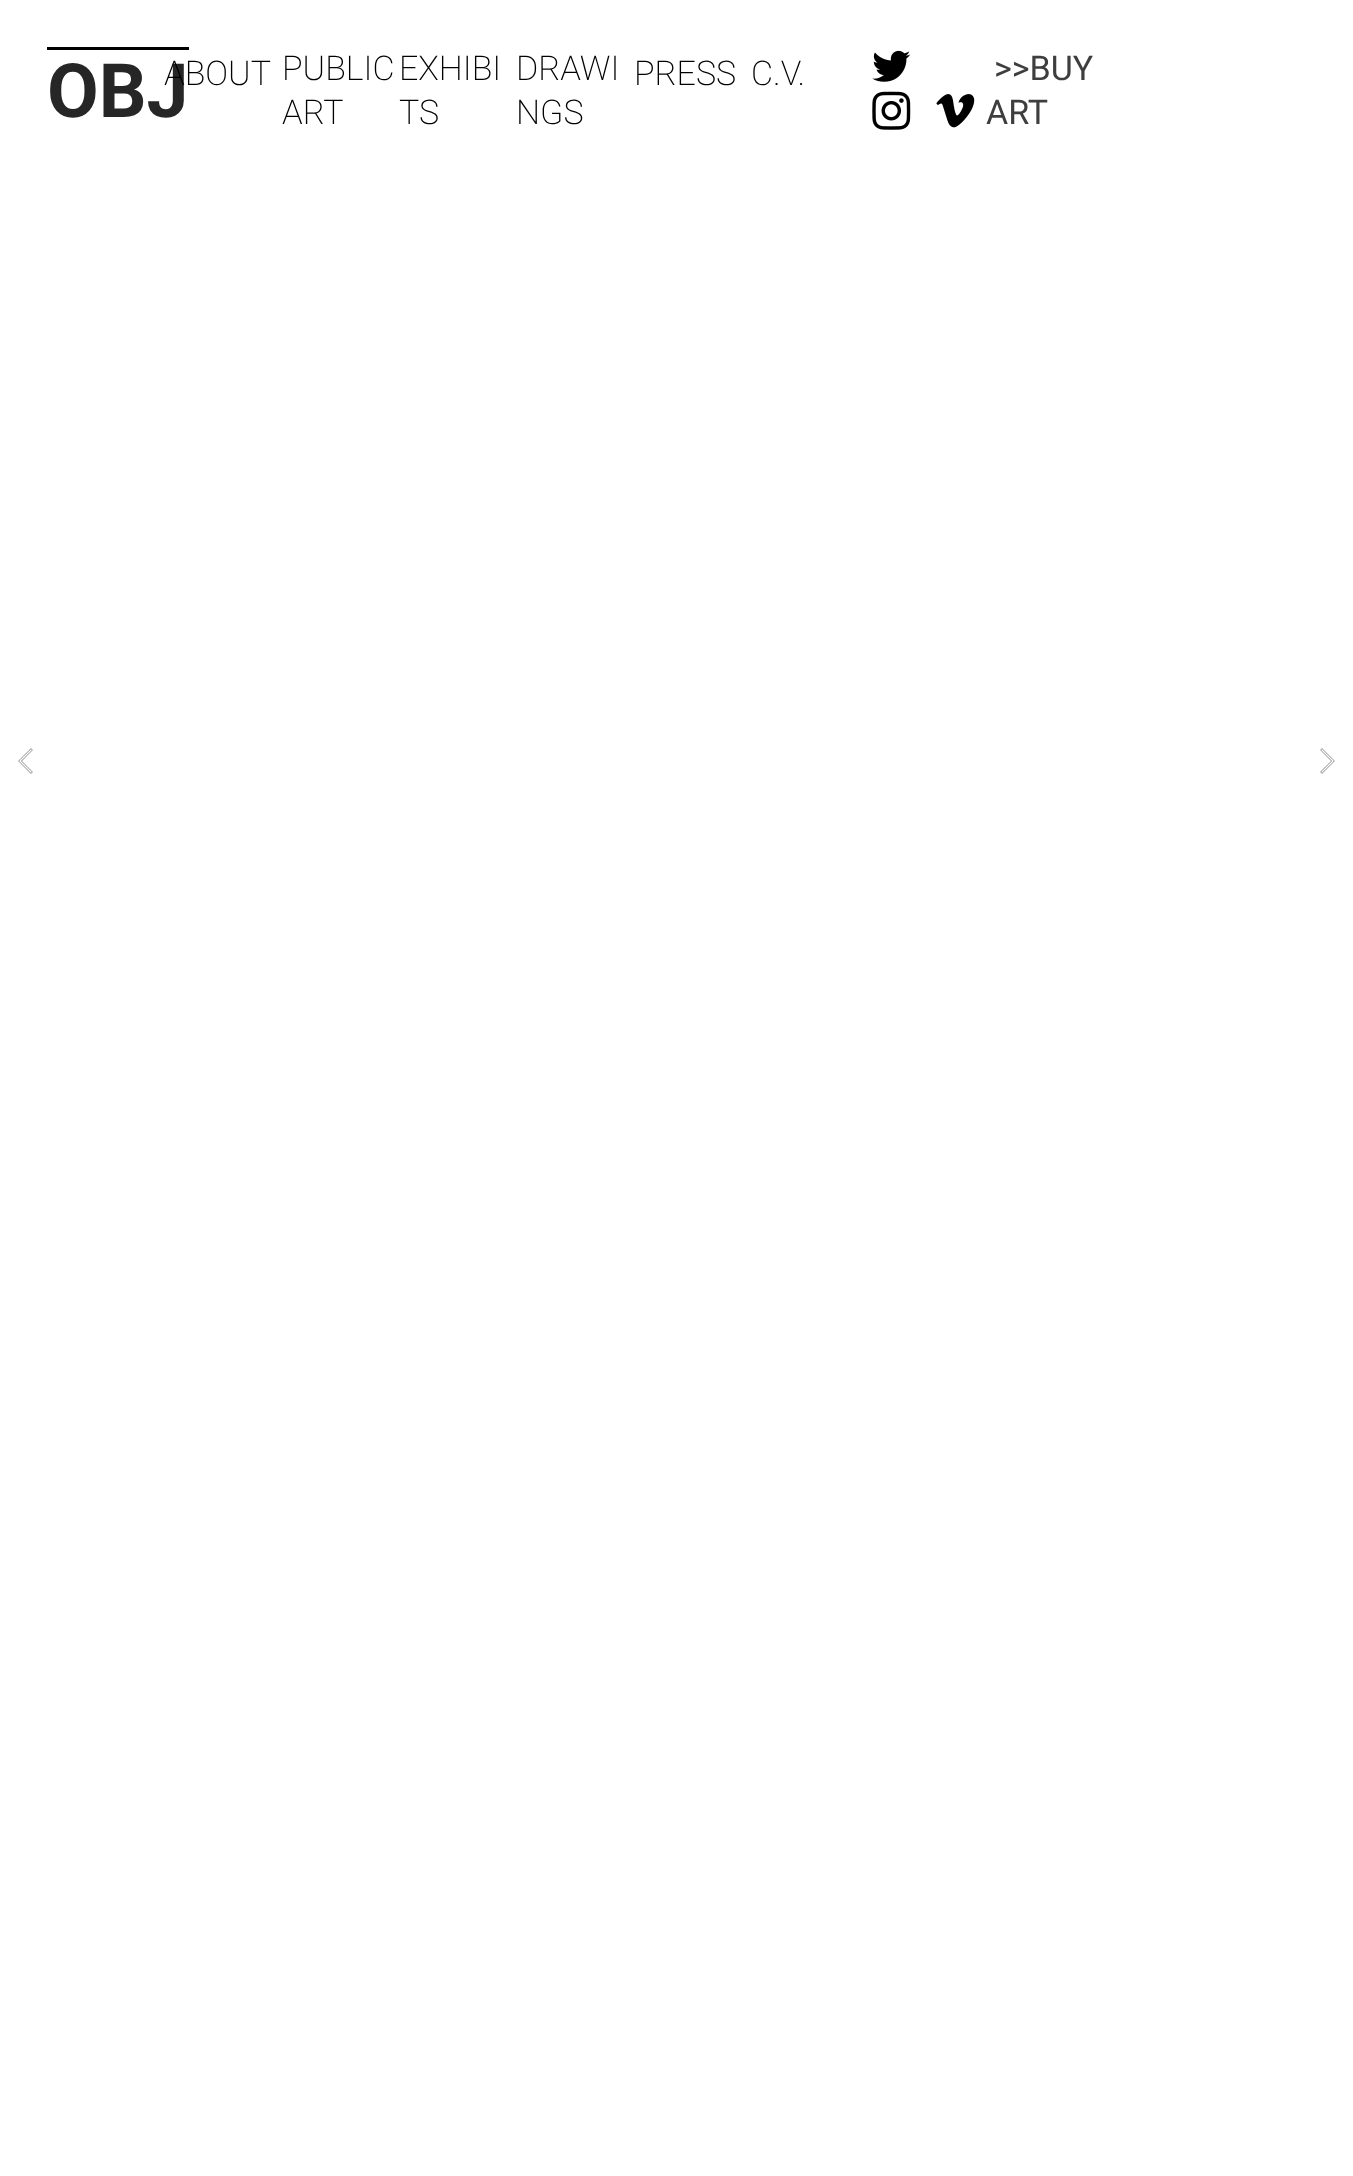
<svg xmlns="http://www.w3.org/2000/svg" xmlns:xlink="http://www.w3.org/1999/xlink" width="1353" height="2176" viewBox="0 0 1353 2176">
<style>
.cls-1{font:bold 75px Roboto;fill:#262626}
.cls-2{font:200 34px Roboto;fill:#000000}
.cls-3{font:34px Roboto;fill:#3e3e3e}
</style>
<rect width="100%" height="100%" fill="#ffffff"/>
<rect fill="#000000" x="47" y="47" width="142" height="3"/>
<image xlink:href="image0.png" x="872" y="50" width="39" height="32"/>
<image xlink:href="image1.png" x="872" y="91" width="39" height="39"/>
<image xlink:href="image2.png" x="936" y="94" width="39" height="34"/>
<path fill="none" stroke="#666666" stroke-width="2.5" stroke-linecap="square" d="M31 772L20 761L31 750"/>
<path fill="none" stroke="#ffffff" stroke-width="1.5" stroke-linecap="square" d="M31 772L20 761L31 750"/>
<path fill="none" stroke="#666666" stroke-width="2.5" stroke-linecap="square" d="M1322 772L1333 761L1322 750"/>
<path fill="none" stroke="#ffffff" stroke-width="1.5" stroke-linecap="square" d="M1322 772L1333 761L1322 750"/>
<text class="cls-1" x="47" y="117">OBJ</text>
<text class="cls-2" x="164" y="85">ABOUT</text>
<text class="cls-2"><tspan x="282" y="80">PUBLIC</tspan><tspan x="282" y="124">ART</tspan></text>
<text class="cls-2"><tspan x="399" y="80">EXHIBI</tspan><tspan x="399" y="124">TS</tspan></text>
<text class="cls-2"><tspan x="516" y="80">DRAWI</tspan><tspan x="516" y="124">NGS</tspan></text>
<text class="cls-2" x="634" y="85">PRESS</text>
<text class="cls-2" x="751" y="85">C.V.</text>
<text class="cls-3" x="994" y="80">&gt;&gt;BUY</text>
<text class="cls-3" x="986" y="124">ART</text>
</svg>
